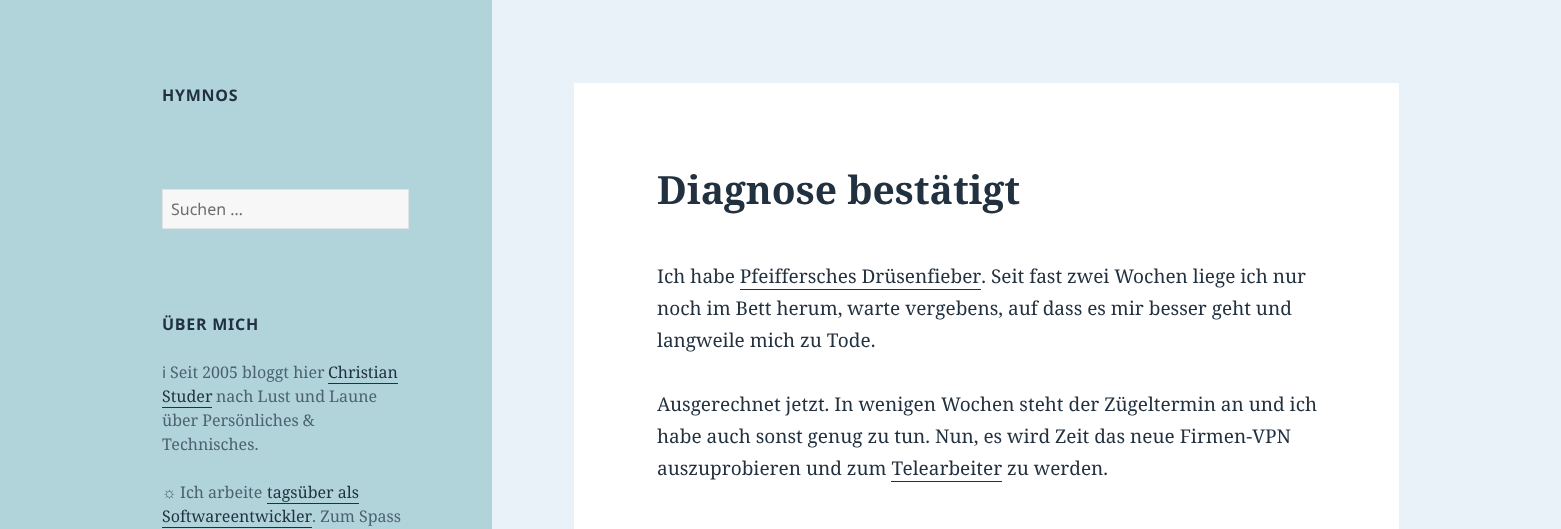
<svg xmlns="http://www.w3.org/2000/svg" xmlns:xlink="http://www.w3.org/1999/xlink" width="1561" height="529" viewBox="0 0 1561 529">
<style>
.cls-1{font:bold 16px Noto Sans;letter-spacing:0.75px;fill:#22313f}
.cls-2{font:16px Noto Sans;fill:#6e6e6e}
.cls-3{font:16px 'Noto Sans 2';fill:#4d626e}
.cls-4{font:16px Noto Serif;fill:#4d626e}
.cls-5{font:16px Noto Serif;fill:#22313f}
.cls-6{font:16px Liberation Serif;fill:#4d626e}
.cls-7{font:bold 39px Noto Serif;fill:#22313f}
.cls-8{font:19px Noto Serif;fill:#22313f}
</style>
<rect width="100%" height="100%" fill="#e9f2f9"/>
<rect fill="#b1d4db" x="0" y="0" width="492" height="529"/>
<rect fill="#f7f7f7" stroke="#e2e3e5" x="162.5" y="189.5" width="246" height="39"/>
<rect fill="#22313f" x="328" y="383" width="70" height="1"/>
<rect fill="#22313f" x="162" y="407" width="50" height="1"/>
<rect fill="#22313f" x="267" y="503" width="92" height="1"/>
<rect fill="#22313f" x="162" y="527" width="150" height="1"/>
<rect fill="#ffffff" x="574" y="83" width="825" height="446"/>
<rect fill="#22313f" x="740" y="289" width="241" height="1"/>
<rect fill="#22313f" x="891" y="481" width="111" height="1"/>
<text class="cls-1" x="162" y="101">HYMNOS</text>
<text class="cls-2" x="171" y="215">Suchen …</text>
<text class="cls-1" x="162" y="330">ÜBER MICH</text>
<text class="cls-3" x="162" y="378">ℹ︎</text>
<text class="cls-4" x="170" y="378">Seit 2005 bloggt hier</text>
<text class="cls-5" x="328" y="378">Christian</text>
<text class="cls-5" x="162" y="402">Studer</text>
<text class="cls-4" x="216" y="402">nach Lust und Laune</text>
<text class="cls-4"><tspan x="162" y="426">über Persönliches &amp;</tspan><tspan x="162" y="450">Technisches.</tspan></text>
<text class="cls-6" x="162" y="498">☼</text>
<text class="cls-4" x="180" y="498">Ich arbeite</text>
<text class="cls-5" x="267" y="498">tagsüber als</text>
<text class="cls-5" x="162" y="522">Softwareentwickler</text>
<text class="cls-4" x="312" y="522">. Zum Spass</text>
<text class="cls-7" x="657" y="204">Diagnose bestätigt</text>
<text class="cls-8"><tspan x="657" y="283">Ich habe Pfeiffersches Drüsenfieber. Seit fast zwei Wochen liege ich nur</tspan><tspan x="657" y="315">noch im Bett herum, warte vergebens, auf dass es mir besser geht und</tspan><tspan x="657" y="347">langweile mich zu Tode.</tspan></text>
<text class="cls-8"><tspan x="657" y="411">Ausgerechnet jetzt. In wenigen Wochen steht der Zügeltermin an und ich</tspan><tspan x="657" y="443">habe auch sonst genug zu tun. Nun, es wird Zeit das neue Firmen-VPN</tspan><tspan x="657" y="475">auszuprobieren und zum Telearbeiter zu werden.</tspan></text>
</svg>
